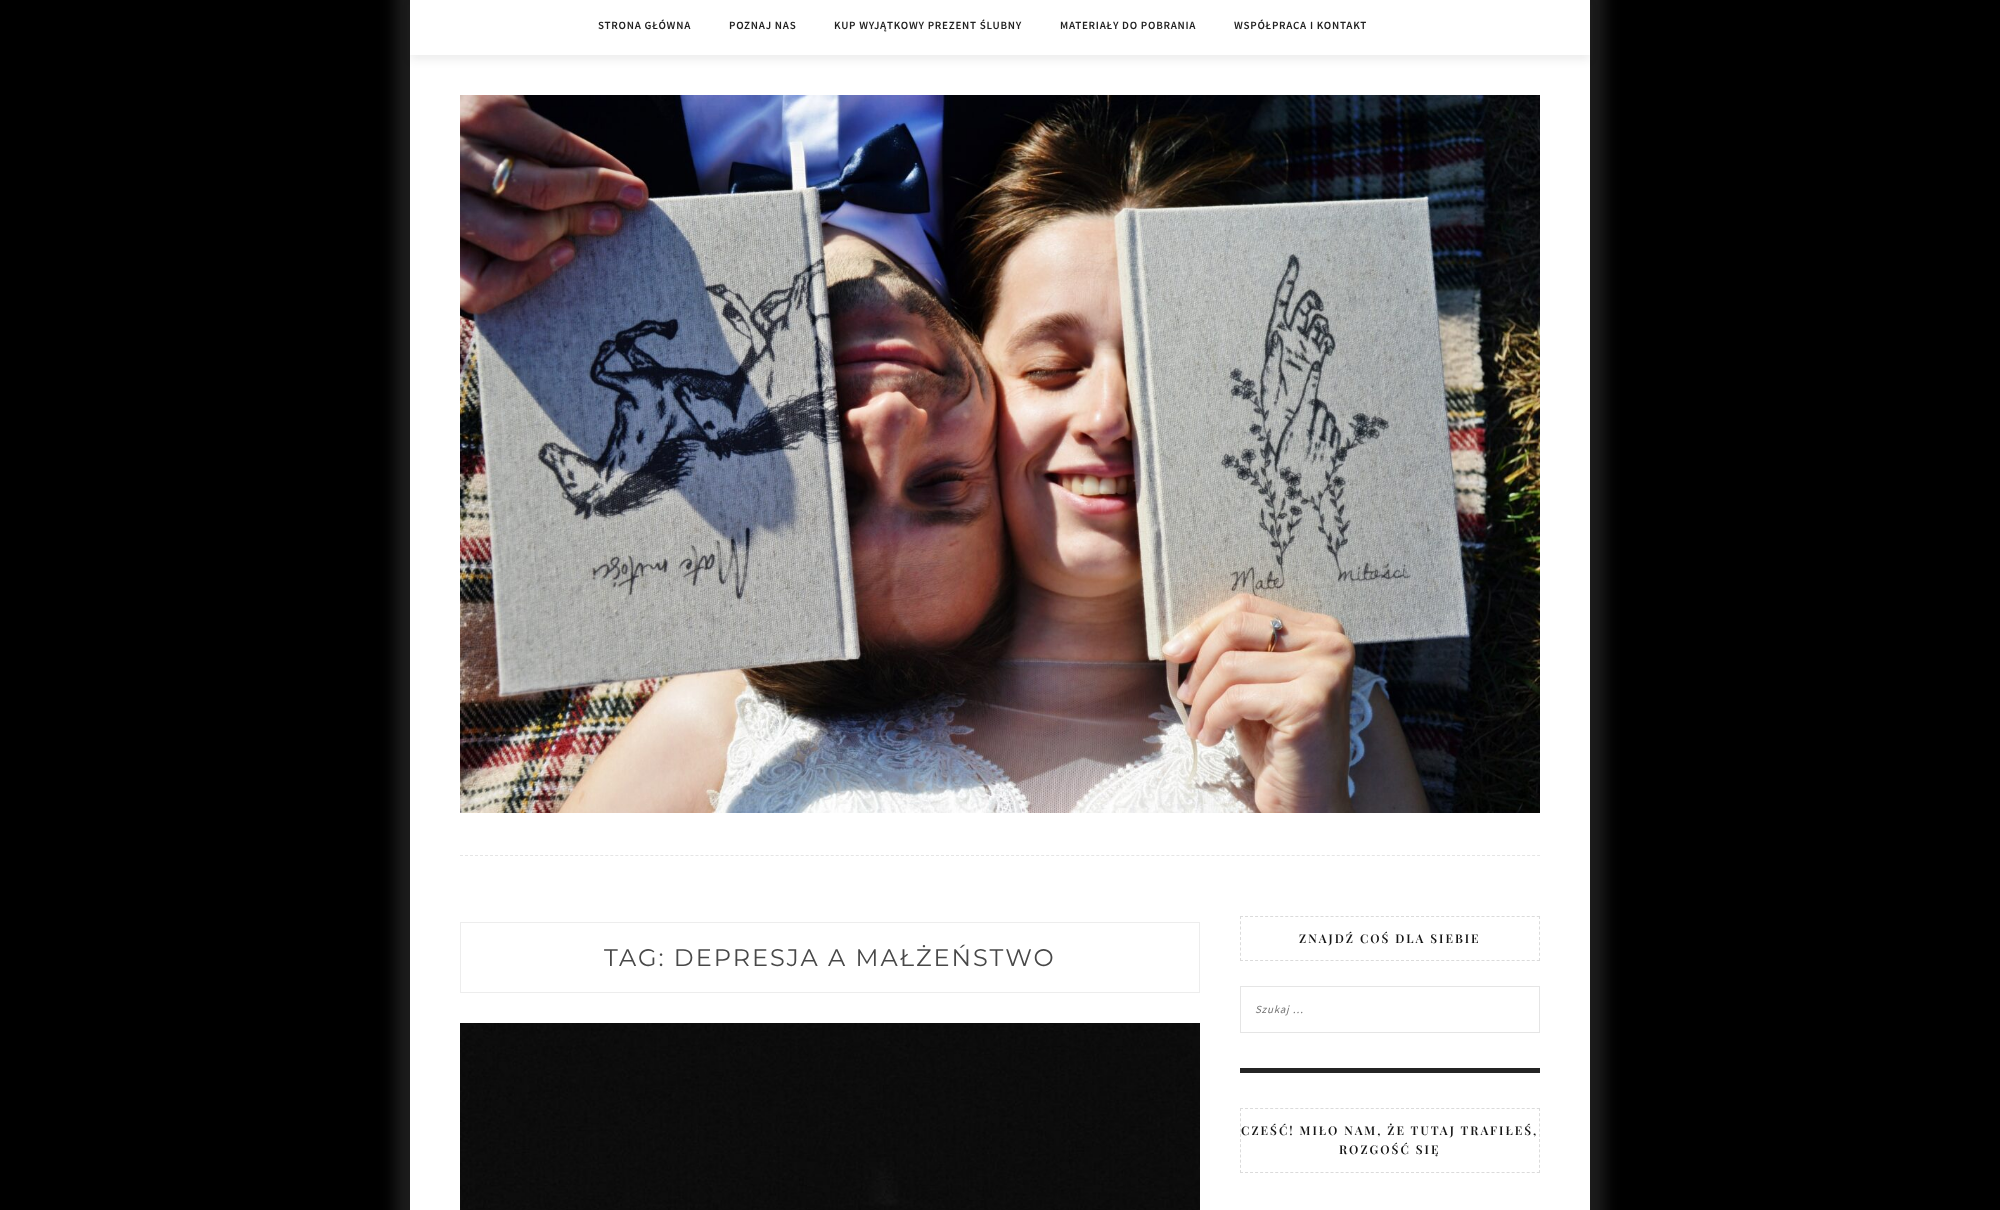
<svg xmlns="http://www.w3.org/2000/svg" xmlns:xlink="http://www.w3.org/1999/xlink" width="2000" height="1210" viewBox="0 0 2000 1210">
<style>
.cls-1{font:600 11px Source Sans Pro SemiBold;letter-spacing:0.75px;fill:#212121}
.cls-2{font:24px Montserrat;letter-spacing:2px;fill:#484848}
.cls-3{font:600 12px Playfair Display;letter-spacing:2px;fill:#161616}
.cls-4{font:italic 11px Source Sans Pro;letter-spacing:0.75px;fill:#757575}
</style>
<defs>
<clipPath id="clip1"><path d="M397 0H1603V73H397ZM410 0H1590V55H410Z" clip-rule="evenodd"/></clipPath>
</defs>
<rect width="100%" height="100%" fill="#000000"/>
<rect fill="#c8c8c8" fill-opacity="0.14" filter="blur(7.5px)" x="395" y="-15" width="1210" height="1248"/>
<rect fill="#ffffff" x="410" y="0" width="1180" height="1210"/>
<g clip-path="url(#clip1)">
<rect fill="#161616" fill-opacity="0.08" filter="blur(4px)" x="410" y="5" width="1180" height="55"/>
</g>
<path fill="none" stroke="#e5e5e5" stroke-dasharray="3 2.01" d="M460 855.5H1540"/>
<image xlink:href="image0.png" x="460" y="95" width="1080" height="718"/>
<rect fill="none" stroke="#ededed" x="460.5" y="922.5" width="739" height="70"/>
<image xlink:href="image1.png" x="460" y="1023" width="740" height="187"/>
<rect fill="#242424" x="1240" y="1068" width="300" height="5"/>
<path fill="none" stroke="#dbdbdb" stroke-dasharray="3 2.03" d="M1240 916.5H1540"/>
<path fill="none" stroke="#dbdbdb" stroke-dasharray="3 2.25" d="M1539.5 916V961"/>
<path fill="none" stroke="#dbdbdb" stroke-dasharray="3 2.03" d="M1240 960.5H1540"/>
<path fill="none" stroke="#dbdbdb" stroke-dasharray="3 2.25" d="M1240.5 916V961"/>
<rect fill="none" stroke="#e5e5e5" x="1240.5" y="986.5" width="299" height="46"/>
<path fill="none" stroke="#dbdbdb" stroke-dasharray="3 2.03" d="M1240 1108.5H1540"/>
<path fill="none" stroke="#dbdbdb" stroke-dasharray="3 2.17" d="M1539.5 1108V1173"/>
<path fill="none" stroke="#dbdbdb" stroke-dasharray="3 2.03" d="M1240 1172.5H1540"/>
<path fill="none" stroke="#dbdbdb" stroke-dasharray="3 2.17" d="M1240.5 1108V1173"/>
<text class="cls-1" x="598" y="29">STRONA GŁÓWNA</text>
<text class="cls-1" x="729" y="29">POZNAJ NAS</text>
<text class="cls-1" x="834" y="29">KUP WYJĄTKOWY PREZENT ŚLUBNY</text>
<text class="cls-1" x="1060" y="29">MATERIAŁY DO POBRANIA</text>
<text class="cls-1" x="1234" y="29">WSPÓŁPRACA I KONTAKT</text>
<text class="cls-2" x="604" y="966">TAG: DEPRESJA A MAŁŻEŃSTWO</text>
<text class="cls-3" x="1299" y="943">ZNAJDŹ COŚ DLA SIEBIE</text>
<text class="cls-4" x="1255" y="1013">Szukaj …</text>
<text class="cls-3" x="1241" y="1135">CZEŚĆ! MIŁO NAM, ŻE TUTAJ TRAFIŁEŚ,</text>
<text class="cls-3" x="1339" y="1154">ROZGOŚĆ SIĘ</text>
</svg>
